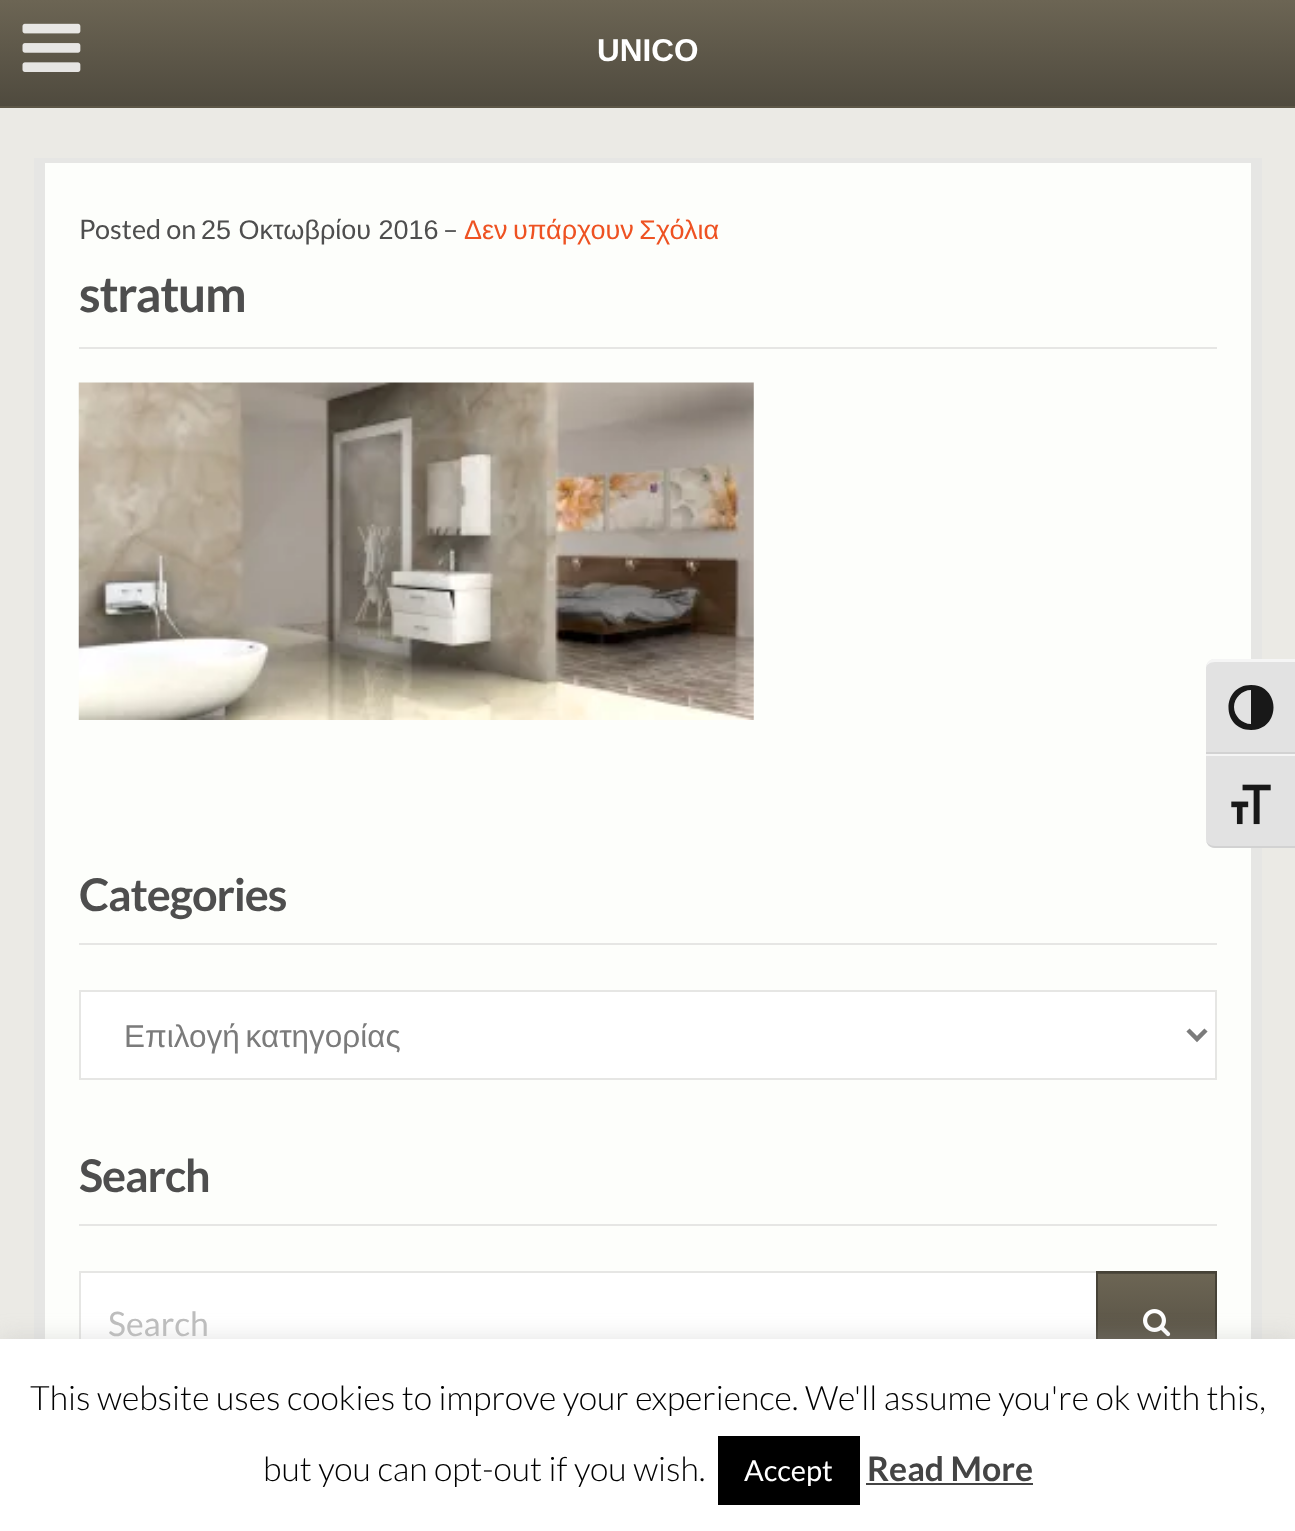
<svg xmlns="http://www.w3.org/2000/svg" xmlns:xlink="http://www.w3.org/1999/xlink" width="1295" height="1531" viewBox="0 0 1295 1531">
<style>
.cls-1{font:bold 31.5px Liberation Sans;fill:#ffffff}
.cls-2{font:27px Lato;fill:#4e4e4e}
.cls-3{font:27px Liberation Sans;fill:#4e4e4e}
.cls-4{font:27px Liberation Sans;fill:#ee5222}
.cls-5{font:bold 49.5px Lato;letter-spacing:-1.25px;fill:#4e4e4e}
.cls-6{font:bold 45px Lato;letter-spacing:-1.1px;fill:#4e4e4e}
.cls-7{font:31.5px Liberation Sans;fill:#7b7b7b}
.cls-8{font:33.75px Lato;fill:#bdbdbd}
.cls-9{font:300 33.75px Lato;fill:#000000}
.cls-10{font:29px Lato;fill:#ffffff}
.cls-11{font:bold 33.75px Lato;fill:#444444}
</style>
<defs>
<linearGradient id="g1" gradientUnits="userSpaceOnUse" x1="648" y1="0" x2="648" y2="106"><stop offset="0" stop-color="#6c6554"/><stop offset="1" stop-color="#4f4a3e"/></linearGradient>
<linearGradient id="g2" gradientUnits="userSpaceOnUse" x1="1157" y1="1274" x2="1157" y2="1373"><stop offset="0" stop-color="#6c6554"/><stop offset="1" stop-color="#4f4a3e"/></linearGradient>
</defs>
<rect width="100%" height="100%" fill="#ebeae5"/>
<rect fill="url(#g1)" x="0" y="0" width="1295" height="106"/>
<rect fill="#5c5647" x="0" y="106" width="1295" height="2"/>
<image xlink:href="image0.png" x="22" y="23" width="59" height="49"/>
<rect fill="#fdfefb" x="45" y="163" width="1206" height="1176"/>
<rect fill="#e6e6e4" x="45" y="158" width="1206" height="5"/>
<rect fill="#e6e6e4" x="1251" y="158" width="11" height="1181"/>
<rect fill="#e6e6e4" x="34" y="158" width="11" height="1181"/>
<rect fill="#e6e6e4" x="79" y="347" width="1138" height="2"/>
<image xlink:href="image1.png" x="78" y="382" width="676" height="338"/>
<rect fill="#e6e6e4" x="79" y="943" width="1138" height="2"/>
<rect fill="#ffffff" stroke="#e6e6e4" stroke-width="2" x="80" y="991" width="1136" height="88"/>
<path fill="none" stroke="#7b7b7b" stroke-width="4.5" d="M1188 1030L1197 1039L1206 1030"/>
<rect fill="#e6e6e4" x="79" y="1224" width="1138" height="2"/>
<rect fill="#ffffff" x="81" y="1273" width="1015" height="66"/>
<rect fill="none" stroke="#e6e6e4" stroke-width="2" x="80" y="1272" width="1136" height="102"/>
<rect fill="#4f4a3e" x="1098" y="1273" width="117" height="1"/>
<rect fill="url(#g2)" x="1098" y="1274" width="117" height="65"/>
<rect fill="none" stroke="#464237" stroke-width="2" x="1097" y="1272" width="119" height="102"/>
<image xlink:href="image2.png" x="1143" y="1309" width="28" height="28"/>
<rect fill="#acabab" fill-opacity="0.3" filter="blur(11px)" x="0" y="1337" width="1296" height="193"/>
<rect fill="#ffffff" x="0" y="1339" width="1295" height="192"/>
<rect fill="#000000" x="718" y="1436" width="142" height="69"/>
<rect fill="#444444" x="866" y="1483" width="167" height="2"/>
<path fill="#e2e2e2" d="M1215 659H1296V754H1206V668C1206 663 1210 659 1215 659Z"/>
<path fill="#f5f5f5" d="M1215 662C1210 662 1206 665 1206 668C1206 664 1209 660 1213 659H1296V662Z"/>
<rect fill="#d2d2d2" x="1206" y="752" width="89" height="2"/>
<path fill="#181818" d="M1251 685C1221 685 1221 730 1251 730C1281 730 1281 685 1251 685ZM1234 707C1234 698 1242 690 1251 690V724C1242 724 1234 716 1234 707Z"/>
<path fill="#e2e2e2" d="M1206 754H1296V848H1215C1210 848 1206 844 1206 839Z"/>
<rect fill="#f5f5f5" x="1206" y="754" width="89" height="2"/>
<path fill="#d2d2d2" d="M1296 848V846H1215C1210 846 1206 843 1206 839C1206 844 1210 848 1215 848Z"/>
<image xlink:href="image3.png" x="1231" y="784" width="40" height="41"/>
<text class="cls-1" x="597" y="61">UNICO</text>
<text class="cls-2" x="79" y="239">Posted on</text>
<text class="cls-3" x="201" y="239">25 Οκτωβρίου 2016</text>
<text class="cls-2" x="443" y="239">–</text>
<text class="cls-4" x="464" y="239" word-spacing="-2">Δεν υπάρχουν Σχόλια</text>
<text class="cls-5" x="79" y="312">stratum</text>
<text class="cls-6" x="79" y="911">Categories</text>
<text class="cls-7" x="124" y="1047" word-spacing="-3">Επιλογή κατηγορίας</text>
<text class="cls-6" x="79" y="1192">Search</text>
<text class="cls-8" x="108" y="1336">Search</text>
<text class="cls-9" x="30" y="1410">This website uses cookies to improve your experience. We'll assume you're ok with this,</text>
<text class="cls-9" x="263" y="1481">but you can opt-out if you wish.</text>
<text class="cls-10" x="744" y="1481">Accept</text>
<text class="cls-11" x="867" y="1481">Read More</text>
</svg>
